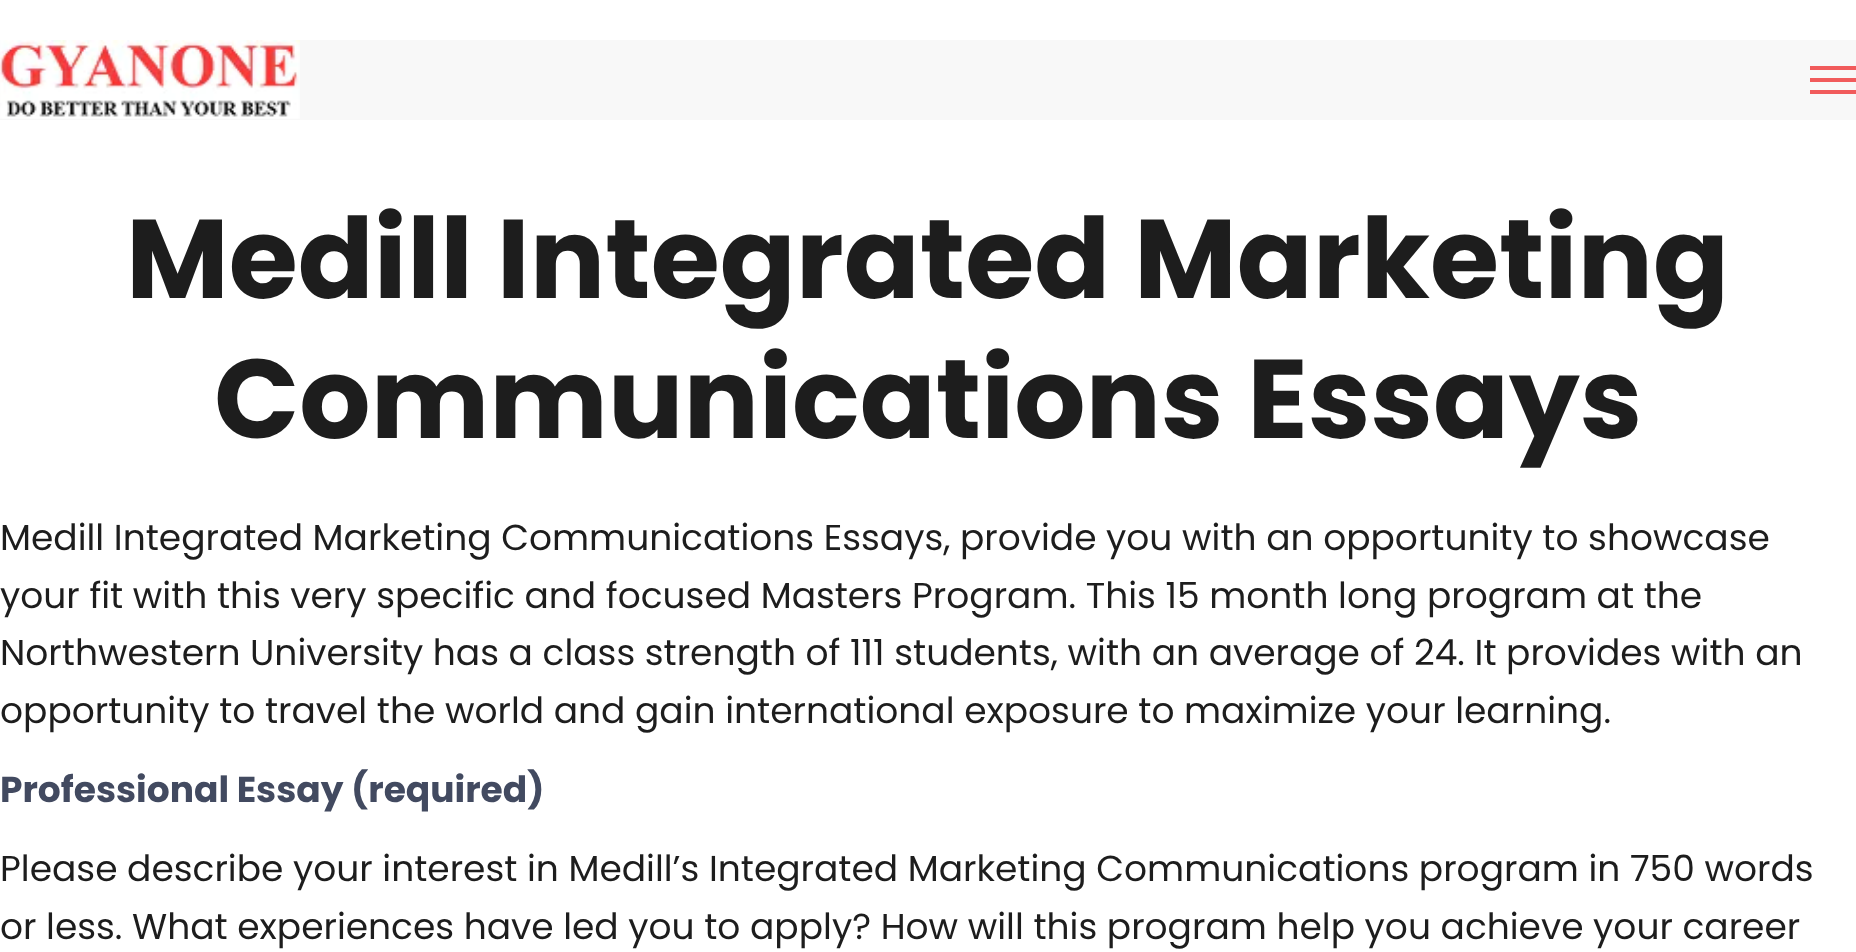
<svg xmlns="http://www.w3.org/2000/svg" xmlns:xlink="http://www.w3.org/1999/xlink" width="1856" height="952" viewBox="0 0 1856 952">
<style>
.cls-1{font:bold 112px Poppins;fill:#1d1d1d}
.cls-2{font:36px Poppins;fill:#1d1d1d}
.cls-3{font:bold 36px Poppins;fill:#424a60}
</style>
<rect width="100%" height="100%" fill="#ffffff"/>
<rect fill="#f8f8f8" x="0" y="40" width="1856" height="80"/>
<image xlink:href="image0.png" x="0" y="40" width="300" height="79"/>
<rect fill="#f15b5c" x="1810" y="66" width="46" height="4"/>
<rect fill="#f15b5c" x="1810" y="78" width="46" height="4"/>
<rect fill="#f15b5c" x="1810" y="90" width="46" height="4"/>
<text class="cls-1" x="126" y="298">Medill Integrated Marketing</text>
<text class="cls-1" x="214" y="438">Communications Essays</text>
<text class="cls-2"><tspan x="0" y="550">Medill Integrated Marketing Communications Essays, provide you with an opportunity to showcase</tspan><tspan x="0" y="608">your fit with this very specific and focused Masters Program. This 15 month long program at the</tspan><tspan x="0" y="665">Northwestern University has a class strength of 111 students, with an average of 24. It provides with an</tspan><tspan x="0" y="723">opportunity to travel the world and gain international exposure to maximize your learning.</tspan></text>
<text class="cls-3" x="0" y="802">Professional Essay (required)</text>
<text class="cls-2"><tspan x="0" y="881">Please describe your interest in Medill’s Integrated Marketing Communications program in 750 words</tspan><tspan x="0" y="939">or less. What experiences have led you to apply? How will this program help you achieve your career</tspan></text>
</svg>
